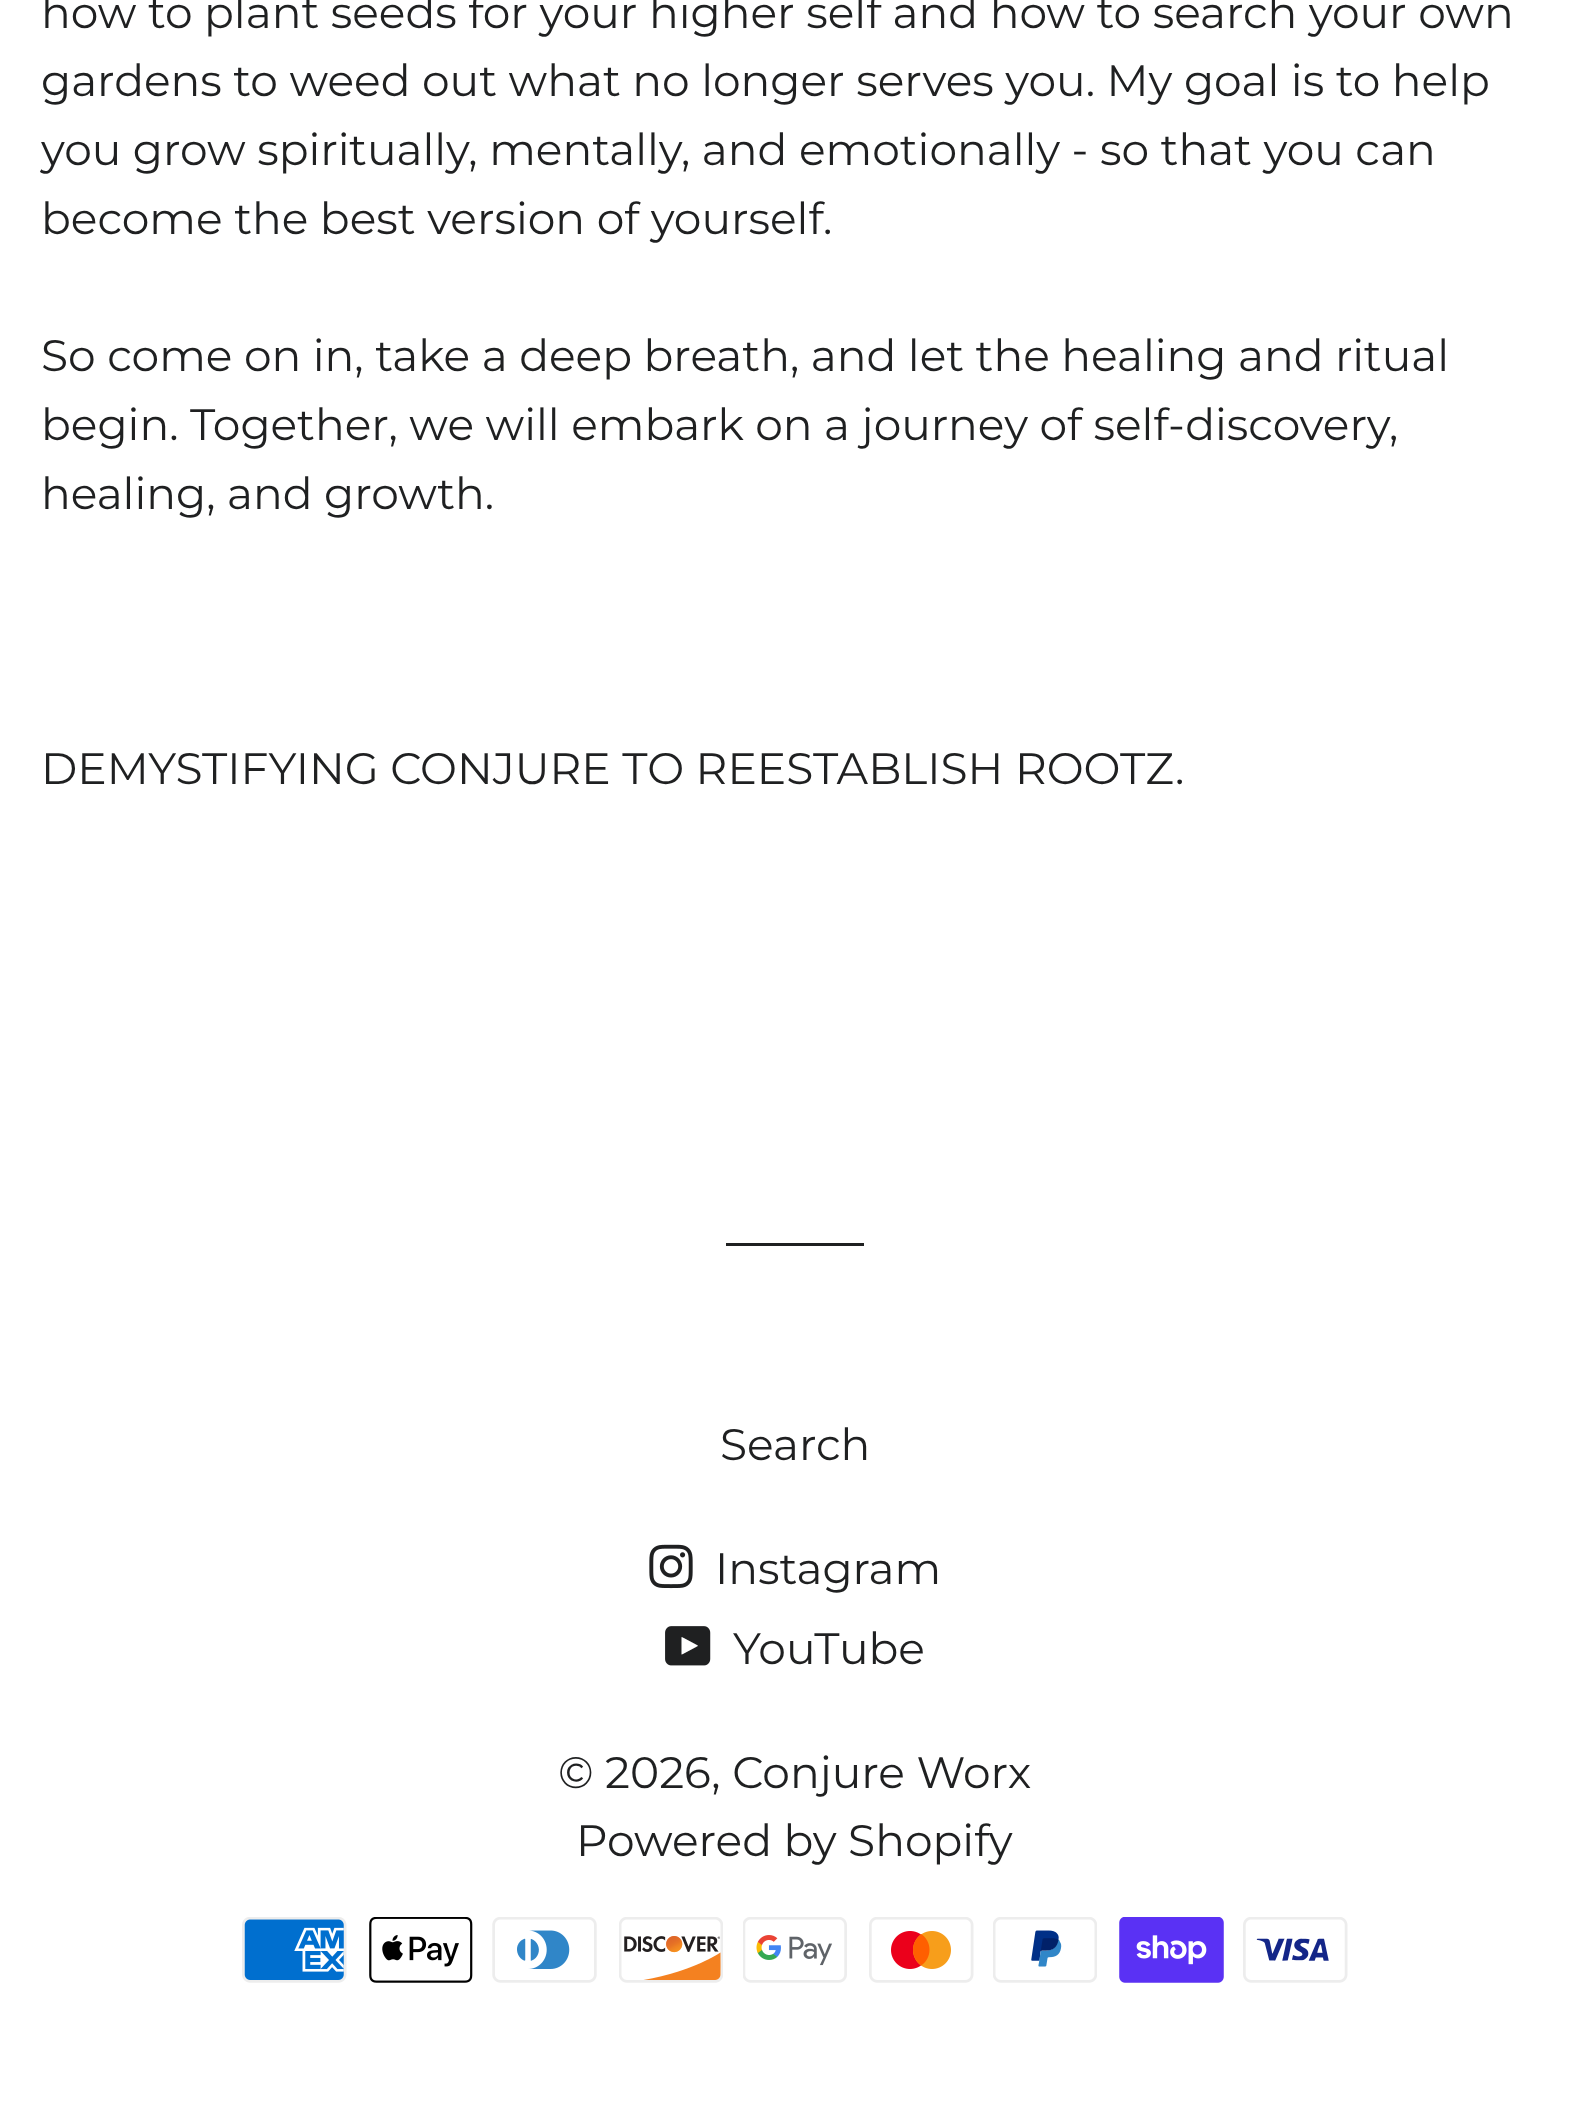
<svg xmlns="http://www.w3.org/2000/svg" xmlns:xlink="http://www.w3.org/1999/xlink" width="1589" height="2119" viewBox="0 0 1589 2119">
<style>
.cls-1{font:44px Montserrat;fill:#1f2021}
</style>
<rect width="100%" height="100%" fill="#ffffff"/>
<rect fill="#1f2021" x="726" y="1243" width="138" height="3"/>
<image xlink:href="image0.png" x="649" y="1544" width="44" height="45"/>
<image xlink:href="image1.png" x="665" y="1626" width="46" height="40"/>
<image xlink:href="image2.png" x="242" y="1917" width="105" height="66"/>
<image xlink:href="image3.png" x="369" y="1917" width="104" height="66"/>
<image xlink:href="image4.png" x="492" y="1917" width="105" height="66"/>
<image xlink:href="image5.png" x="619" y="1917" width="104" height="66"/>
<image xlink:href="image6.png" x="743" y="1917" width="104" height="66"/>
<image xlink:href="image7.png" x="869" y="1917" width="105" height="66"/>
<image xlink:href="image8.png" x="993" y="1917" width="104" height="66"/>
<image xlink:href="image9.png" x="1119" y="1917" width="105" height="66"/>
<image xlink:href="image10.png" x="1243" y="1917" width="105" height="66"/>
<text class="cls-1"><tspan x="41" y="28">how to plant seeds for your higher self and how to search your own</tspan><tspan x="41" y="96">gardens to weed out what no longer serves you. My goal is to help</tspan><tspan x="41" y="165">you grow spiritually, mentally, and emotionally - so that you can</tspan><tspan x="41" y="234">become the best version of yourself.</tspan></text>
<text class="cls-1"><tspan x="41" y="371">So come on in, take a deep breath, and let the healing and ritual</tspan><tspan x="41" y="440">begin. Together, we will embark on a journey of self-discovery,</tspan><tspan x="41" y="509">healing, and growth.</tspan></text>
<text class="cls-1" x="41" y="784">DEMYSTIFYING CONJURE TO REESTABLISH ROOTZ.</text>
<text class="cls-1" x="720" y="1460">Search</text>
<text class="cls-1" x="715" y="1584">Instagram</text>
<text class="cls-1" x="733" y="1664">YouTube</text>
<text class="cls-1" x="558" y="1788">© 2026, Conjure Worx</text>
<text class="cls-1" x="576" y="1856">Powered by Shopify</text>
</svg>
